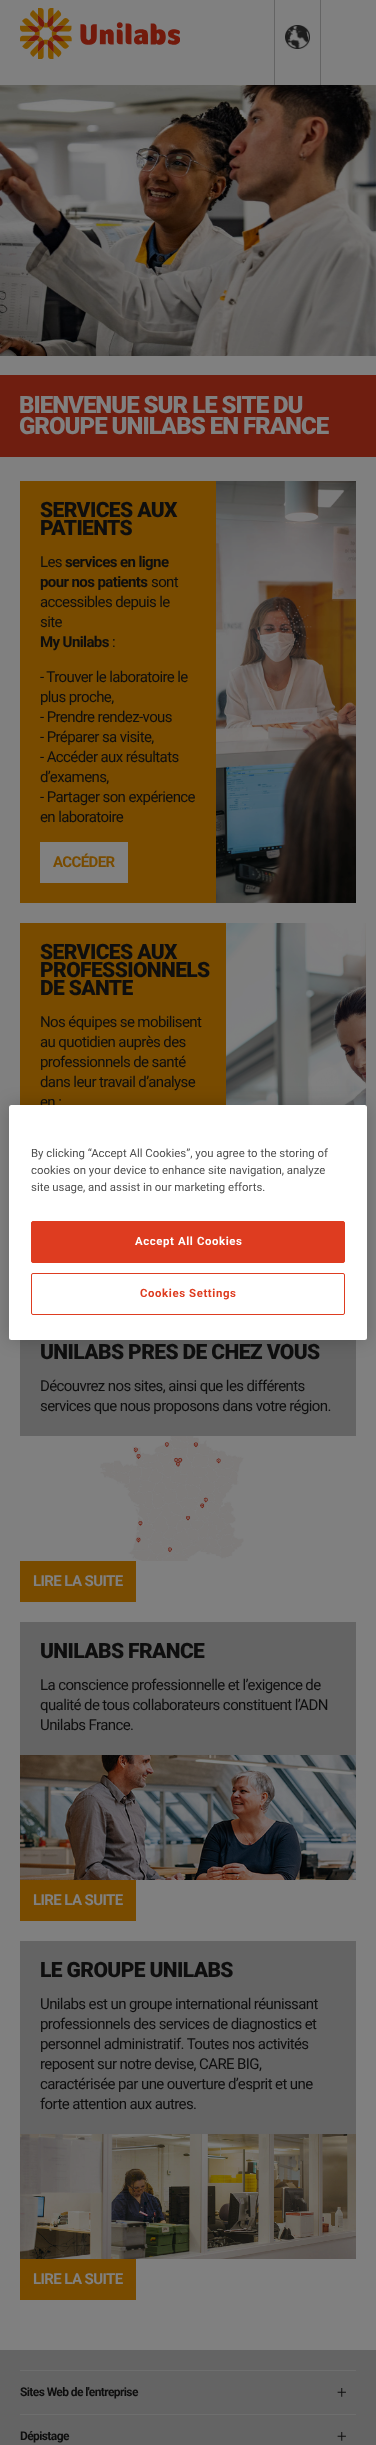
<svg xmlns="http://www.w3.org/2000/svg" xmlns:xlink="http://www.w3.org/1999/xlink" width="376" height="2445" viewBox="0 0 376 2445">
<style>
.cls-1{font:900 24px Roboto;letter-spacing:-1px;fill:#808080}
.cls-2{font:900 21px Roboto;letter-spacing:-0.6px;fill:#0e0e0e}
.cls-3{font:15px Roboto;letter-spacing:-0.6px;fill:#0e0e0e}
.cls-4{font:bold 15px Roboto;letter-spacing:-0.6px;fill:#0e0e0e}
.cls-5{font:bold 15px Roboto;letter-spacing:-0.6px;fill:#784b00}
.cls-6{font:bold 15px Roboto;letter-spacing:-0.6px;fill:#808080}
.cls-7{font:bold 12px Roboto;letter-spacing:-0.6px;fill:#0e0e0e}
.cls-8{font:300 17px Roboto;letter-spacing:-0.6px;fill:#0e0e0e}
.cls-9{font:11.4px Roboto;fill:#505050}
.cls-10{font:bold 11.4px Roboto;letter-spacing:0.6px;fill:#ffffff}
.cls-11{font:bold 11.4px Roboto;letter-spacing:0.6px;fill:#de3c20}
</style>
<rect width="100%" height="100%" fill="#808080"/>
<image xlink:href="image0.png" x="20" y="8" width="160" height="51"/>
<rect fill="#646464" x="274" y="0" width="1" height="85"/>
<image xlink:href="image1.png" x="285" y="25" width="25" height="24"/>
<rect fill="#646464" x="320" y="0" width="1" height="85"/>
<image xlink:href="image2.png" x="0" y="85" width="376" height="271"/>
<rect fill="#6f1e10" x="0" y="375" width="376" height="82"/>
<rect fill="#784b00" x="20" y="481" width="196" height="422"/>
<rect fill="#808080" x="40" y="842" width="88" height="41"/>
<image xlink:href="image3.png" x="216" y="481" width="140" height="422"/>
<rect fill="#784b00" x="20" y="923" width="206" height="182"/>
<image xlink:href="image4.png" x="226" y="923" width="140" height="183"/>
<rect fill="#646464" x="20" y="1340" width="336" height="96"/>
<image xlink:href="image5.png" x="100" y="1436" width="144" height="125"/>
<rect fill="#784b00" x="20" y="1561" width="116" height="41"/>
<rect fill="#646464" x="20" y="1622" width="336" height="133"/>
<image xlink:href="image6.png" x="20" y="1755" width="336" height="125"/>
<rect fill="#784b00" x="20" y="1880" width="116" height="41"/>
<rect fill="#646464" x="20" y="1941" width="336" height="193"/>
<image xlink:href="image7.png" x="20" y="2134" width="336" height="125"/>
<rect fill="#784b00" x="20" y="2259" width="116" height="41"/>
<rect fill="#646464" x="0" y="2350" width="376" height="95"/>
<rect fill="#6e6e6e" x="20" y="2370" width="336" height="1"/>
<rect fill="#6e6e6e" x="20" y="2414" width="336" height="1"/>
<rect fill="#000000" fill-opacity="0.2" filter="blur(9px)" x="9" y="1105" width="358" height="235" rx="2.5"/>
<text class="cls-1"><tspan x="19" y="413">BIENVENUE SUR LE SITE DU</tspan><tspan x="19" y="434">GROUPE UNILABS EN FRANCE</tspan></text>
<text class="cls-2"><tspan x="40" y="517">SERVICES AUX</tspan><tspan x="40" y="535">PATIENTS</tspan></text>
<text class="cls-3" x="40" y="567">Les</text>
<text class="cls-4" x="65" y="567">services en ligne</text>
<text class="cls-4" x="40" y="587">pour nos patients</text>
<text class="cls-3" x="151" y="587">sont</text>
<text class="cls-3"><tspan x="40" y="607">accessibles depuis le</tspan><tspan x="40" y="627">site</tspan></text>
<text class="cls-4" x="40" y="647">My Unilabs</text>
<text class="cls-3" x="112" y="647">:</text>
<text class="cls-3"><tspan x="40" y="682">- Trouver le laboratoire le</tspan><tspan x="40" y="702">plus proche,</tspan><tspan x="40" y="722">- Prendre rendez-vous</tspan><tspan x="40" y="742">- Préparer sa visite,</tspan><tspan x="40" y="762">- Accéder aux résultats</tspan><tspan x="40" y="782">d’examens,</tspan><tspan x="40" y="802">- Partager son expérience</tspan><tspan x="40" y="822">en laboratoire</tspan></text>
<text class="cls-5" x="53" y="867">ACCÉDER</text>
<text class="cls-2"><tspan x="40" y="959">SERVICES AUX</tspan><tspan x="40" y="977">PROFESSIONNELS</tspan><tspan x="40" y="995">DE SANTE</tspan></text>
<text class="cls-3"><tspan x="40" y="1027">Nos équipes se mobilisent</tspan><tspan x="40" y="1047">au quotidien auprès des</tspan><tspan x="40" y="1067">professionnels de santé</tspan><tspan x="40" y="1087">dans leur travail d’analyse</tspan><tspan x="40" y="1107">en :</tspan></text>
<text class="cls-2" x="40" y="1359">UNILABS PRES DE CHEZ VOUS</text>
<text class="cls-3"><tspan x="40" y="1391">Découvrez nos sites, ainsi que les différents</tspan><tspan x="40" y="1411">services que nous proposons dans votre région.</tspan></text>
<text class="cls-6" x="33" y="1586">LIRE LA SUITE</text>
<text class="cls-2" x="40" y="1658">UNILABS FRANCE</text>
<text class="cls-3"><tspan x="40" y="1690">La conscience professionnelle et l’exigence de</tspan><tspan x="40" y="1710">qualité de tous collaborateurs constituent l’ADN</tspan><tspan x="40" y="1730">Unilabs France.</tspan></text>
<text class="cls-6" x="33" y="1905">LIRE LA SUITE</text>
<text class="cls-2" x="40" y="1977">LE GROUPE UNILABS</text>
<text class="cls-3"><tspan x="40" y="2009">Unilabs est un groupe international réunissant</tspan><tspan x="40" y="2029">professionnels des services de diagnostics et</tspan><tspan x="40" y="2049">personnel administratif. Toutes nos activités</tspan><tspan x="40" y="2069">reposent sur notre devise, CARE BIG,</tspan><tspan x="40" y="2089">caractérisée par une ouverture d’esprit et une</tspan><tspan x="40" y="2109">forte attention aux autres.</tspan></text>
<text class="cls-6" x="33" y="2284">LIRE LA SUITE</text>
<text class="cls-7" x="20" y="2396">Sites Web de l'entreprise</text>
<text class="cls-8" x="337" y="2398">+</text>
<text class="cls-7" x="20" y="2440">Dépistage</text>
<text class="cls-8" x="337" y="2442">+</text>
<rect fill="#ffffff" x="9" y="1105" width="358" height="235" rx="2.5"/>
<text class="cls-9"><tspan x="31" y="1157">By clicking “Accept All Cookies”, you agree to the storing of</tspan><tspan x="31" y="1174">cookies on your device to enhance site navigation, analyze</tspan><tspan x="31" y="1191">site usage, and assist in our marketing efforts.</tspan></text>
<rect fill="#de3c20" stroke="#de3c20" x="31.5" y="1221.5" width="313" height="41" rx="1.5"/>
<text class="cls-10" x="135" y="1245">Accept All Cookies</text>
<rect fill="none" stroke="#de3c20" x="31.5" y="1273.5" width="313" height="41" rx="1.5"/>
<text class="cls-11" x="140" y="1297">Cookies Settings</text>
</svg>
